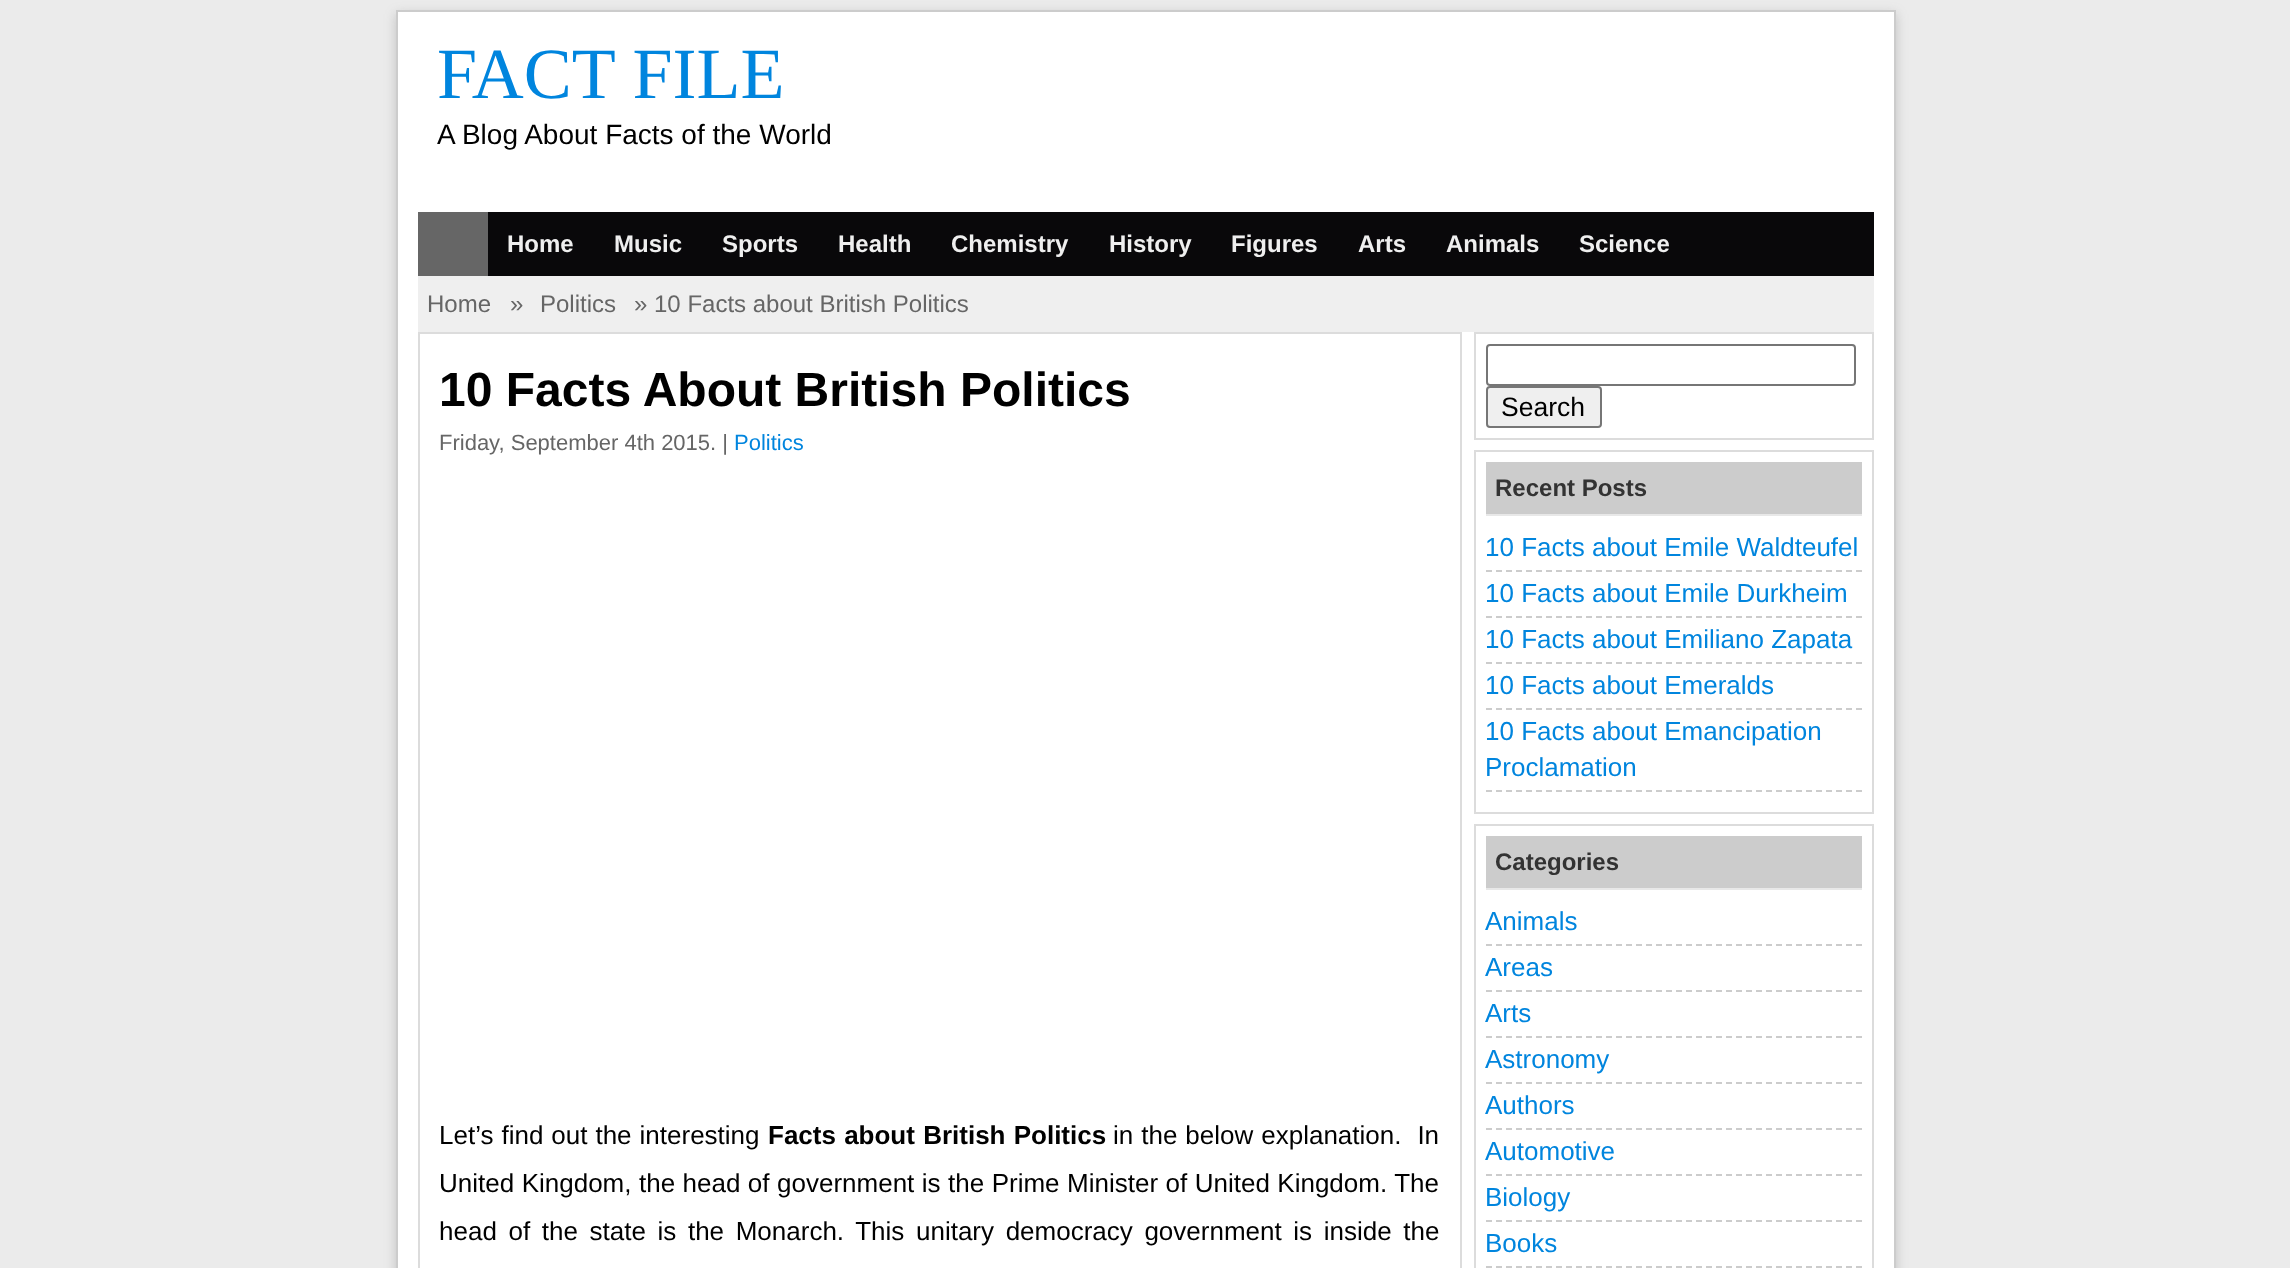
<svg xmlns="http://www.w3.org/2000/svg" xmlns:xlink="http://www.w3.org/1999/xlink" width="2290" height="1268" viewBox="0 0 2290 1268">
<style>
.cls-1{font:72px Liberation Serif;fill:#0085de}
.cls-2{font:28px Liberation Sans;fill:#000000}
.cls-3{font:bold 24px Liberation Sans;fill:#efefef}
.cls-4{font:24px Liberation Sans;fill:#666666}
.cls-5{font:bold 48px Liberation Sans;fill:#000000}
.cls-6{font:22px Liberation Sans;fill:#666666}
.cls-7{font:22px Liberation Sans;fill:#0085de}
.cls-8{font:26px Liberation Sans;fill:#000000}
.cls-9{font:bold 26px Liberation Sans;fill:#000000}
.cls-10{font:26.5px Liberation Sans;fill:#000000}
.cls-11{font:bold 24px Liberation Sans;fill:#333333}
.cls-12{font:26px Liberation Sans;fill:#0085de}
</style>
<rect width="100%" height="100%" fill="#ebebeb"/>
<rect fill="#646464" fill-opacity="0.3" filter="blur(6px)" x="396" y="14" width="1500" height="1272"/>
<rect fill="#ffffff" stroke="#cccccc" stroke-width="2" x="397" y="11" width="1498" height="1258"/>
<rect fill="#09080a" x="488" y="212" width="1386" height="64"/>
<rect fill="#666666" x="418" y="212" width="70" height="64"/>
<rect fill="#efefef" x="418" y="276" width="1456" height="56"/>
<rect fill="none" stroke="#dcdcdc" stroke-width="2" x="419" y="333" width="1042" height="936"/>
<rect fill="none" stroke="#dcdcdc" stroke-width="2" x="1475" y="333" width="398" height="106"/>
<rect fill="none" stroke="#767676" stroke-width="2" x="1487" y="345" width="368" height="40" rx="3"/>
<rect fill="#efefef" stroke="#767676" stroke-width="2" x="1487" y="387" width="114" height="40" rx="3"/>
<rect fill="none" stroke="#dcdcdc" stroke-width="2" x="1475" y="451" width="398" height="362"/>
<rect fill="#cccccc" x="1486" y="462" width="376" height="52"/>
<rect fill="#e8e8e8" x="1486" y="514" width="376" height="2"/>
<path fill="none" stroke="#cccccc" stroke-width="2" stroke-dasharray="6 4" d="M1486 571H1862"/>
<path fill="none" stroke="#cccccc" stroke-width="2" stroke-dasharray="6 4" d="M1486 617H1862"/>
<path fill="none" stroke="#cccccc" stroke-width="2" stroke-dasharray="6 4" d="M1486 663H1862"/>
<path fill="none" stroke="#cccccc" stroke-width="2" stroke-dasharray="6 4" d="M1486 709H1862"/>
<path fill="none" stroke="#cccccc" stroke-width="2" stroke-dasharray="6 4" d="M1486 791H1862"/>
<rect fill="none" stroke="#dcdcdc" stroke-width="2" x="1475" y="825" width="398" height="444"/>
<rect fill="#cccccc" x="1486" y="836" width="376" height="52"/>
<rect fill="#e8e8e8" x="1486" y="888" width="376" height="2"/>
<path fill="none" stroke="#cccccc" stroke-width="2" stroke-dasharray="6 4" d="M1486 945H1862"/>
<path fill="none" stroke="#cccccc" stroke-width="2" stroke-dasharray="6 4" d="M1486 991H1862"/>
<path fill="none" stroke="#cccccc" stroke-width="2" stroke-dasharray="6 4" d="M1486 1037H1862"/>
<path fill="none" stroke="#cccccc" stroke-width="2" stroke-dasharray="6 4" d="M1486 1083H1862"/>
<path fill="none" stroke="#cccccc" stroke-width="2" stroke-dasharray="6 4" d="M1486 1129H1862"/>
<path fill="none" stroke="#cccccc" stroke-width="2" stroke-dasharray="6 4" d="M1486 1175H1862"/>
<path fill="none" stroke="#cccccc" stroke-width="2" stroke-dasharray="6 4" d="M1486 1221H1862"/>
<path fill="none" stroke="#cccccc" stroke-width="2" stroke-dasharray="6 4" d="M1486 1267H1862"/>
<text class="cls-1" x="437" y="98">FACT FILE</text>
<text class="cls-2" x="437" y="144">A Blog About Facts of the World</text>
<text class="cls-3" x="507" y="252">Home</text>
<text class="cls-3" x="614" y="252">Music</text>
<text class="cls-3" x="722" y="252">Sports</text>
<text class="cls-3" x="838" y="252">Health</text>
<text class="cls-3" x="951" y="252">Chemistry</text>
<text class="cls-3" x="1109" y="252">History</text>
<text class="cls-3" x="1231" y="252">Figures</text>
<text class="cls-3" x="1358" y="252">Arts</text>
<text class="cls-3" x="1446" y="252">Animals</text>
<text class="cls-3" x="1579" y="252">Science</text>
<text class="cls-4" x="427" y="312">Home</text>
<text class="cls-4" x="510" y="312">»</text>
<text class="cls-4" x="540" y="312">Politics</text>
<text class="cls-4" x="634" y="312">» 10 Facts about British Politics</text>
<text class="cls-5" x="439" y="406">10 Facts About British Politics</text>
<text class="cls-6" x="439" y="450">Friday, September 4th 2015. |</text>
<text class="cls-7" x="734" y="450">Politics</text>
<text class="cls-8" x="439" y="1144" word-spacing="0.75">Let’s find out the interesting</text>
<text class="cls-9" x="768" y="1144" word-spacing="1">Facts about British Politics</text>
<text class="cls-8" xml:space="preserve" x="1113" y="1144" word-spacing="0.75">in the below explanation.  In</text>
<text class="cls-8"><tspan x="439" y="1192" word-spacing="0.25">United Kingdom, the head of government is the Prime Minister of United Kingdom. The</tspan><tspan x="439" y="1240" word-spacing="4.4">head of the state is the Monarch. This unitary democracy government is inside the</tspan></text>
<text class="cls-10" x="1501" y="416">Search</text>
<text class="cls-11" x="1495" y="496">Recent Posts</text>
<text class="cls-12"><tspan x="1485" y="556">10 Facts about Emile Waldteufel</tspan><tspan x="1485" y="602">10 Facts about Emile Durkheim</tspan><tspan x="1485" y="648">10 Facts about Emiliano Zapata</tspan><tspan x="1485" y="694">10 Facts about Emeralds</tspan><tspan x="1485" y="740">10 Facts about Emancipation</tspan><tspan x="1485" y="776">Proclamation</tspan></text>
<text class="cls-11" x="1495" y="870">Categories</text>
<text class="cls-12"><tspan x="1485" y="930">Animals</tspan><tspan x="1485" y="976">Areas</tspan><tspan x="1485" y="1022">Arts</tspan><tspan x="1485" y="1068">Astronomy</tspan><tspan x="1485" y="1114">Authors</tspan><tspan x="1485" y="1160">Automotive</tspan><tspan x="1485" y="1206">Biology</tspan><tspan x="1485" y="1252">Books</tspan></text>
</svg>
